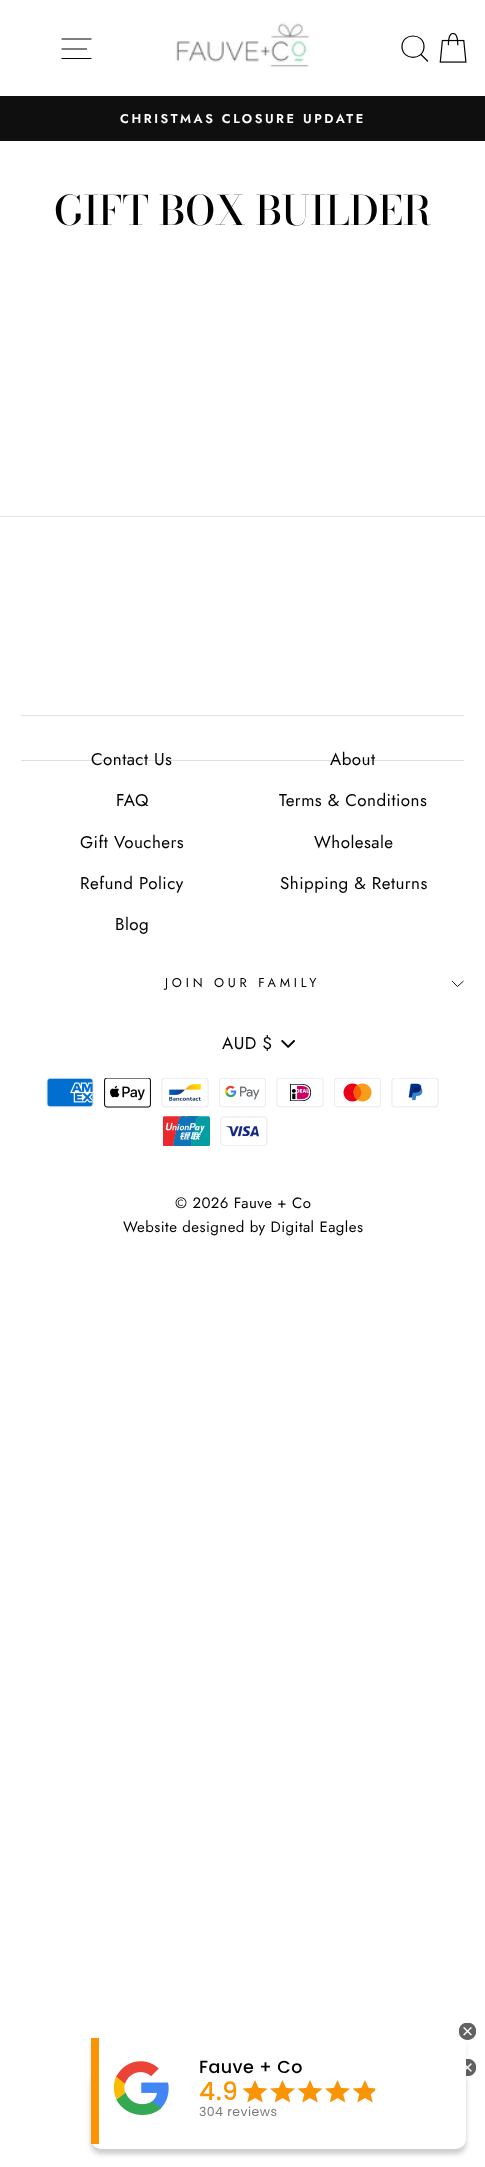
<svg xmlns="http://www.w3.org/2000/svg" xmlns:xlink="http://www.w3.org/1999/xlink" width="485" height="2167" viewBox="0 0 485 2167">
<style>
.cls-1{font:600 12.75px Jost;letter-spacing:2.55px;fill:#ffffff}
.cls-2{font:500 40.4px Bodoni Moda;fill:#000000}
.cls-3{font:17px Jost;letter-spacing:0.45px;fill:#000000}
.cls-4{font:12.75px Jost;letter-spacing:3.8px;fill:#000000}
.cls-5{font:15px Jost;letter-spacing:0.45px;fill:#000000}
.cls-6{font:500 17.5px Poppins;letter-spacing:0.45px;fill:#000000}
.cls-7{font:500 25px Poppins;letter-spacing:0.45px;fill:#fb9405}
.cls-8{font:12.5px Poppins;letter-spacing:0.45px;fill:#7a7a7a}
</style>
<rect width="100%" height="100%" fill="#ffffff"/>
<path fill="none" stroke="#000000" stroke-width="1.2" d="M61.5 39H91.5M61.5 49H87M61.5 58.5H91.5"/>
<image xlink:href="image0.png" x="174" y="21" width="137" height="47"/>
<path fill="none" stroke="#000000" stroke-width="1.2" d="M424 46.5C424 61 402 61 402 46.5C402 32.5 424 32.5 424 46.5ZM428 61.5L421 54.5"/>
<image xlink:href="image1.png" x="439" y="32" width="28" height="31"/>
<rect fill="#0f0f0f" x="0" y="96" width="485" height="45"/>
<rect fill="#e8e8e1" x="0" y="516" width="485" height="1"/>
<rect fill="#e0e0e0" x="21" y="715" width="443" height="1"/>
<rect fill="#000000" fill-opacity="0.12" x="21" y="760" width="443" height="1"/>
<path fill="none" stroke="#000000" stroke-width="0.9" d="M452 981L457.5 986.5L463.5 981"/>
<image xlink:href="image2.png" x="281" y="1040" width="14" height="8"/>
<image xlink:href="image3.png" x="46" y="1078" width="48" height="30"/>
<image xlink:href="image4.png" x="104" y="1078" width="47" height="30"/>
<image xlink:href="image5.png" x="161" y="1078" width="48" height="30"/>
<image xlink:href="image6.png" x="219" y="1078" width="47" height="30"/>
<image xlink:href="image7.png" x="276" y="1078" width="48" height="30"/>
<image xlink:href="image8.png" x="334" y="1078" width="47" height="30"/>
<image xlink:href="image9.png" x="391" y="1078" width="48" height="30"/>
<image xlink:href="image10.png" x="163" y="1116" width="47" height="30"/>
<image xlink:href="image11.png" x="220" y="1116" width="48" height="30"/>
<rect fill="#000000" fill-opacity="0.1" filter="blur(2.5px)" x="91" y="2074" width="375" height="80" rx="10"/>
<image xlink:href="image12.png" x="466" y="2059" width="10" height="17"/>
<rect fill="#000000" fill-opacity="0.1" filter="blur(2.5px)" x="91" y="2038" width="375" height="116" rx="10"/>
<rect fill="#ffffff" x="91" y="2033" width="375" height="116" rx="10"/>
<rect fill="#fb9405" x="91" y="2038" width="8" height="106"/>
<image xlink:href="image13.png" x="459" y="2023" width="17" height="17"/>
<image xlink:href="image14.png" x="114" y="2061" width="55" height="54"/>
<image xlink:href="image15.png" x="243" y="2080" width="24" height="22"/>
<image xlink:href="image16.png" x="270" y="2080" width="25" height="22"/>
<image xlink:href="image15.png" x="298" y="2080" width="24" height="22"/>
<image xlink:href="image16.png" x="325" y="2080" width="25" height="22"/>
<image xlink:href="image15.png" x="353" y="2080" width="24" height="22"/>
<image xlink:href="image17.png" x="243" y="2080" width="25" height="23"/>
<image xlink:href="image18.png" x="270" y="2080" width="25" height="23"/>
<image xlink:href="image17.png" x="298" y="2080" width="25" height="23"/>
<image xlink:href="image18.png" x="325" y="2080" width="25" height="23"/>
<image xlink:href="image19.png" x="353" y="2080" width="22" height="23"/>
<text class="cls-1" x="120" y="123">CHRISTMAS CLOSURE UPDATE</text>
<text class="cls-2" x="54" y="225">GIFT BOX BUILDER</text>
<text class="cls-3" x="91" y="765">Contact Us</text>
<text class="cls-3" x="330" y="765">About</text>
<text class="cls-3" x="116" y="806">FAQ</text>
<text class="cls-3" x="279" y="806">Terms &amp; Conditions</text>
<text class="cls-3" x="80" y="848">Gift Vouchers</text>
<text class="cls-3" x="314" y="848">Wholesale</text>
<text class="cls-3" x="80" y="889">Refund Policy</text>
<text class="cls-3" x="280" y="889">Shipping &amp; Returns</text>
<text class="cls-3" x="115" y="930">Blog</text>
<text class="cls-4" x="165" y="987">JOIN OUR FAMILY</text>
<text class="cls-3" x="222" y="1049">AUD $</text>
<text class="cls-5" x="175" y="1208">© 2026 Fauve + Co</text>
<text class="cls-5" x="123" y="1232">Website designed by Digital Eagles</text>
<text class="cls-6" x="199" y="2073">Fauve + Co</text>
<text class="cls-7" x="199" y="2100">4.9</text>
<text class="cls-8" x="199" y="2116">304 reviews</text>
</svg>
